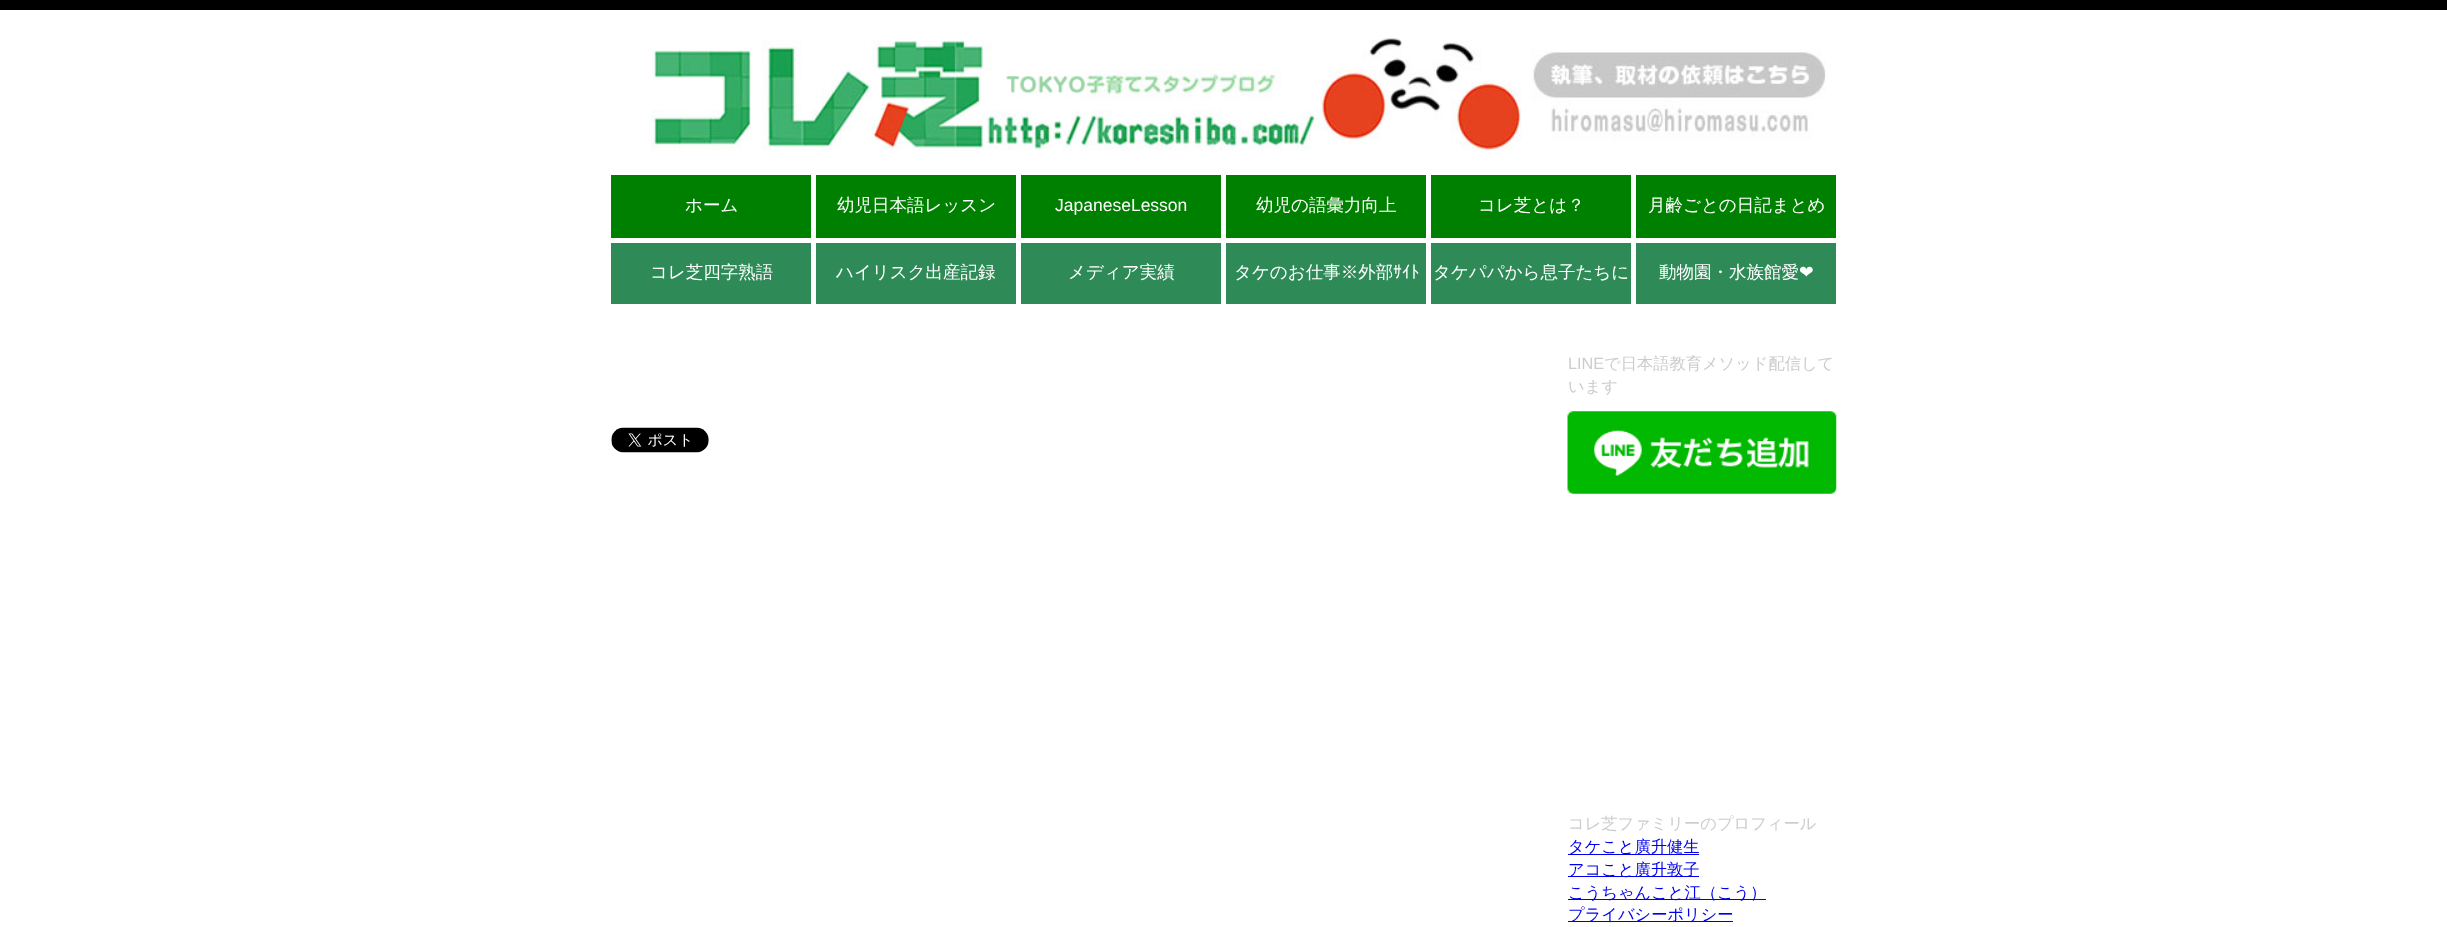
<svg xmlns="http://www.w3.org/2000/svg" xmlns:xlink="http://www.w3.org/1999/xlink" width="2447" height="927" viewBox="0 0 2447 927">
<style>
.cls-1{font:500 17.5px WenQuanYi Zen Hei;fill:#ffffff}
.cls-2{font:17.5px Liberation Sans;fill:#ffffff}
.cls-3{font:17.5px IPAPGothic;fill:#ffffff}
.cls-4{font:17.5px DejaVu Sans;fill:#ffffff}
.cls-5{font:16.25px Liberation Sans;fill:#cccccc}
.cls-6{font:500 16.25px WenQuanYi Zen Hei;fill:#cccccc}
.cls-7{font:500 16.25px WenQuanYi Zen Hei;fill:#0000ee}
</style>
<rect width="100%" height="100%" fill="#ffffff"/>
<rect fill="#000000" x="0" y="0" width="2447" height="10"/>
<image xlink:href="image0.png" x="651" y="37" width="1175" height="114"/>
<rect fill="#008000" x="611" y="175" width="200" height="63"/>
<rect fill="#008000" x="816" y="175" width="200" height="63"/>
<rect fill="#008000" x="1021" y="175" width="200" height="63"/>
<rect fill="#008000" x="1226" y="175" width="200" height="63"/>
<rect fill="#008000" x="1431" y="175" width="200" height="63"/>
<rect fill="#008000" x="1636" y="175" width="200" height="63"/>
<rect fill="#2e8b57" x="611" y="243" width="200" height="61"/>
<rect fill="#2e8b57" x="816" y="243" width="200" height="61"/>
<rect fill="#2e8b57" x="1021" y="243" width="200" height="61"/>
<rect fill="#2e8b57" x="1226" y="243" width="200" height="61"/>
<rect fill="#2e8b57" x="1431" y="243" width="200" height="61"/>
<rect fill="#2e8b57" x="1636" y="243" width="200" height="61"/>
<image xlink:href="image1.png" x="611" y="427" width="98" height="26"/>
<image xlink:href="image2.png" x="1567" y="411" width="270" height="83"/>
<rect fill="#0000ee" x="1568" y="854" width="131" height="1"/>
<rect fill="#0000ee" x="1568" y="876" width="131" height="1"/>
<rect fill="#0000ee" x="1568" y="899" width="198" height="1"/>
<rect fill="#0000ee" x="1568" y="921" width="165" height="1"/>
<text class="cls-1" x="685" y="211">ホーム</text>
<text class="cls-1" x="837" y="211">幼児日本語レッスン</text>
<text class="cls-2" x="1055" y="211">JapaneseLesson</text>
<text class="cls-1" x="1256" y="211">幼児の語彙力向上</text>
<text class="cls-1" x="1478" y="211">コレ芝とは？</text>
<text class="cls-1" x="1648" y="211">月齢ごとの日記まとめ</text>
<text class="cls-1" x="650" y="278">コレ芝四字熟語</text>
<text class="cls-1" x="836" y="278">ハイリスク出産記録</text>
<text class="cls-1" x="1068" y="278">メディア実績</text>
<text class="cls-1" x="1234" y="278">タケのお仕事※外部</text>
<text class="cls-3" x="1393" y="278">ｻｲﾄ</text>
<text class="cls-1" x="1433" y="278">タケパパから息子たちに</text>
<text class="cls-1" x="1659" y="278">動物園・水族館愛</text>
<text class="cls-4" x="1799" y="278">❤︎</text>
<text class="cls-5" x="1568" y="369">LINE</text>
<text class="cls-6" x="1604" y="369">で日本語教育メソッド配信して</text>
<text class="cls-6" x="1568" y="392">います</text>
<text class="cls-6" x="1568" y="829">コレ芝ファミリーのプロフィール</text>
<text class="cls-7"><tspan x="1568" y="852">タケこと廣升健生</tspan><tspan x="1568" y="875">アコこと廣升敦子</tspan><tspan x="1568" y="898">こうちゃんこと江（こう）</tspan><tspan x="1568" y="920">プライバシーポリシー</tspan></text>
</svg>
